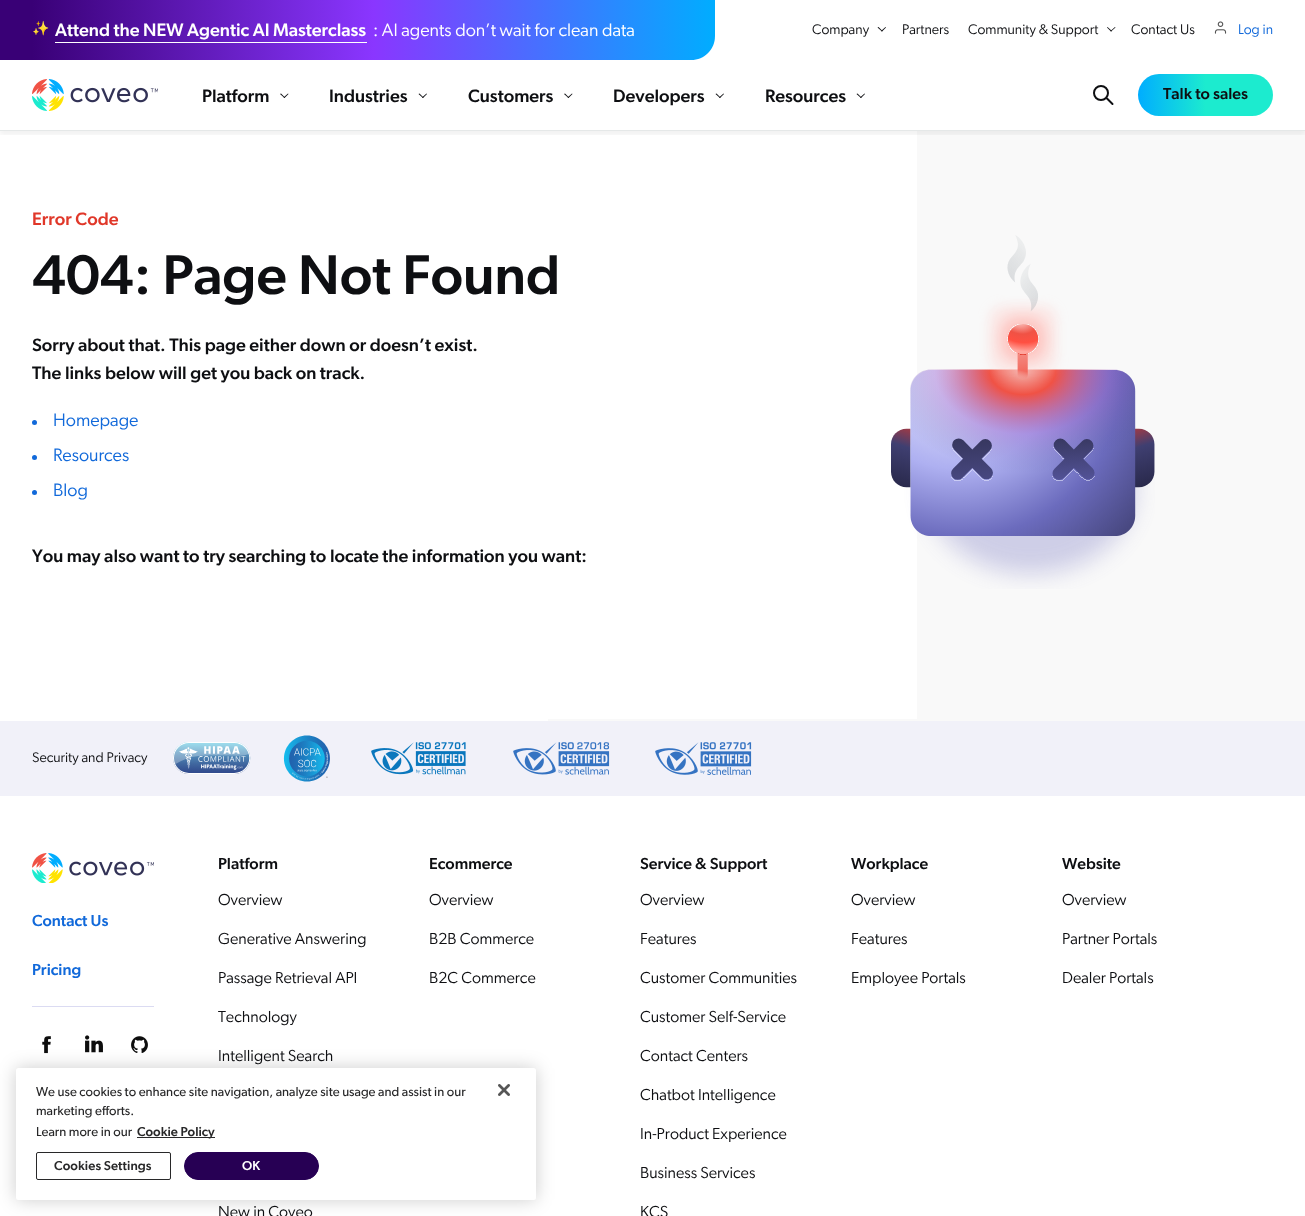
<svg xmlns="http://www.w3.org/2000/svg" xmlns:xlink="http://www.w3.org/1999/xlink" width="1305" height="1216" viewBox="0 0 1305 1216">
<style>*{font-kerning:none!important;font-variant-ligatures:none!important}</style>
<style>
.cls-1{font:14px Noto Color Emoji;fill:#ffffff}
.cls-2{font:500 18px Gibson;fill:#ffffff}
.cls-3{font:18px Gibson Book;fill:#ffffff}
.cls-4{font:14px Gibson Book;fill:#0e0f12}
.cls-5{font:14px Gibson Book;fill:#1169da}
.cls-6{font:500 18px Gibson;fill:#0e0f12}
.cls-7{font:500 16px Gibson;fill:#0e0f12}
.cls-8{font:500 18px Gibson;fill:#e03729}
.cls-9{font:500 56px Gibson;fill:#0e0f12}
.cls-10{font:18px Gibson Book;fill:#1169da}
.cls-11{font:500 16px Gibson;fill:#1169da}
.cls-12{font:16px Gibson Book;fill:#0e0f12}
.cls-13{font:13px Gibson;fill:#282829}
.cls-14{font:500 13px Gibson;fill:#282829}
.cls-15{font:500 13px Gibson;letter-spacing:0.1px;fill:#282829}
.cls-16{font:500 13px Gibson;letter-spacing:0.1px;fill:#ffffff}
</style>
<defs>
<clipPath id="clip1"><rect x="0" y="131" width="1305" height="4"/></clipPath>
<linearGradient id="g1" gradientUnits="userSpaceOnUse" x1="32" y1="30" x2="715" y2="30"><stop offset="0" stop-color="#390076"/><stop offset="0.5" stop-color="#8a36ff"/><stop offset="1" stop-color="#00adff"/></linearGradient>
<linearGradient id="g2" gradientUnits="userSpaceOnUse" x1="1273" y1="95" x2="1138" y2="95"><stop offset="0" stop-color="#1cebcf"/><stop offset="0.5" stop-color="#1cebcf"/><stop offset="1" stop-color="#00adff"/></linearGradient>
</defs>
<rect width="100%" height="100%" fill="#ffffff"/>
<rect fill="#f9f9f9" x="548" y="131" width="757" height="590"/>
<rect fill="#ffffff" x="548" y="131" width="369" height="588"/>
<g clip-path="url(#clip1)">
<rect fill="#000000" fill-opacity="0.05" filter="blur(2px)" x="0" y="64" width="1305" height="71"/>
</g>
<path fill="url(#g1)" d="M32 0H715V36C715 49.5 704.5 60 691 60H32Z"/>
<rect fill="#390076" x="0" y="0" width="32" height="60"/>
<rect fill="#ffffff" x="55" y="42" width="312" height="1"/>
<path fill="#0e0f12" d="M886 27.5L882 31.5L881 31L885.5 27Z"/>
<path fill="#0e0f12" d="M882.5 31L882 31.5L877.5 27.5L878.5 27Z"/>
<path fill="#0e0f12" d="M1115.5 27.5L1111 31.5L1110.5 31L1115 27Z"/>
<path fill="#0e0f12" d="M1112 31L1111 31.5L1107 27.5L1107.5 27Z"/>
<image xlink:href="image0.png" x="1214" y="21" width="13" height="13"/>
<rect fill="#e5e8e8" x="0" y="130" width="1305" height="1"/>
<image xlink:href="image1.png" x="32" y="79" width="126" height="32"/>
<path fill="#0e0f12" d="M288.5 94L284.5 98L283.5 97.5L288 93.5Z"/>
<path fill="#0e0f12" d="M285 97.5L284.5 98L280 94L281 93.5Z"/>
<path fill="#0e0f12" d="M427 94L423 98L422 97.5L426.5 93.5Z"/>
<path fill="#0e0f12" d="M423.5 97.5L423 98L418.5 94L419.5 93.5Z"/>
<path fill="#0e0f12" d="M572.5 94L568.5 98L567.5 97.5L572 93.5Z"/>
<path fill="#0e0f12" d="M569 97.5L568.5 98L564 94L565 93.5Z"/>
<path fill="#0e0f12" d="M724 94L720 98L719 97.5L723.5 93.5Z"/>
<path fill="#0e0f12" d="M720.5 97.5L720 98L715.5 94L716.5 93.5Z"/>
<path fill="#0e0f12" d="M865 94L861 98L860 97.5L864.5 93.5Z"/>
<path fill="#0e0f12" d="M861.5 97.5L861 98L856.5 94L857.5 93.5Z"/>
<circle fill="none" stroke="#0e0f12" stroke-width="2" cx="1101" cy="93" r="7"/>
<path fill="none" stroke="#0e0f12" stroke-width="2" stroke-linecap="round" stroke-linejoin="round" d="M1112.5 104L1107 98.5"/>
<rect fill="url(#g2)" x="1138" y="74" width="135" height="42" rx="21"/>
<circle fill="#1169da" cx="34.5" cy="422.5" r="2.5"/>
<circle fill="#1169da" cx="34.5" cy="457.5" r="2.5"/>
<circle fill="#1169da" cx="34.5" cy="492.5" r="2.5"/>
<image xlink:href="image2.png" x="891" y="235" width="264" height="354"/>
<rect fill="#f1f1f9" x="0" y="721" width="1305" height="75"/>
<image xlink:href="image3.png" x="173" y="742" width="78" height="32"/>
<image xlink:href="image4.png" x="283" y="735" width="47" height="47"/>
<image xlink:href="image5.png" x="371" y="742" width="95" height="33"/>
<image xlink:href="image6.png" x="513" y="742" width="97" height="33"/>
<image xlink:href="image7.png" x="655" y="742" width="97" height="33"/>
<rect fill="#dbdbf2" x="32" y="1006" width="122" height="1"/>
<image xlink:href="image8.png" x="32" y="853" width="122" height="30"/>
<image xlink:href="image9.png" x="42" y="1036" width="9" height="18"/>
<image xlink:href="image10.png" x="85" y="1035" width="18" height="18"/>
<image xlink:href="image11.png" x="131" y="1036" width="17" height="17"/>
<rect fill="#000000" fill-opacity="0.2" filter="blur(9px)" x="16" y="1068" width="520" height="132" rx="2.5"/>
<rect fill="#ffffff" x="16" y="1068" width="520" height="132" rx="2.5"/>
<rect fill="#282829" x="137" y="1137" width="78" height="1"/>
<image xlink:href="image12.png" x="498" y="1084" width="12" height="12"/>
<rect fill="none" stroke="#282829" x="36.5" y="1152.5" width="134" height="27" rx="1.5"/>
<rect fill="#270054" stroke="#270054" x="184.5" y="1152.5" width="134" height="27" rx="13.5"/>
<text class="cls-1" x="32" y="33">✨</text>
<text class="cls-2" x="55" y="36">Attend the NEW Agentic AI Masterclass</text>
<text class="cls-3" x="373" y="36">: AI agents don’t wait for clean data</text>
<text class="cls-4" x="812" y="34">Company</text>
<text class="cls-4" x="902" y="34">Partners</text>
<text class="cls-4" x="968" y="34">Community &amp; Support</text>
<text class="cls-4" x="1131" y="34">Contact Us</text>
<text class="cls-5" x="1238" y="34">Log in</text>
<text class="cls-6" x="202" y="102">Platform</text>
<text class="cls-6" x="329" y="102">Industries</text>
<text class="cls-6" x="468" y="102">Customers</text>
<text class="cls-6" x="613" y="102">Developers</text>
<text class="cls-6" x="765" y="102">Resources</text>
<text class="cls-7" x="1163" y="99">Talk to sales</text>
<text class="cls-8" x="32" y="225">Error Code</text>
<text class="cls-9" x="32" y="294">404: Page Not Found</text>
<text class="cls-6"><tspan x="32" y="351">Sorry about that. This page either down or doesn’t exist.</tspan><tspan x="32" y="379">The links below will get you back on track.</tspan></text>
<text class="cls-10"><tspan x="53" y="426">Homepage</tspan><tspan x="53" y="461">Resources</tspan><tspan x="53" y="496">Blog</tspan></text>
<text class="cls-6" x="32" y="562">You may also want to try searching to locate the information you want:</text>
<text class="cls-4" x="32" y="762">Security and Privacy</text>
<text class="cls-11" x="32" y="926">Contact Us</text>
<text class="cls-11" x="32" y="975">Pricing</text>
<text class="cls-7" x="218" y="869">Platform</text>
<text class="cls-12" x="218" y="905">Overview</text>
<text class="cls-12" x="218" y="944">Generative Answering</text>
<text class="cls-12" x="218" y="983">Passage Retrieval API</text>
<text class="cls-12" x="218" y="1022">Technology</text>
<text class="cls-12" x="218" y="1061">Intelligent Search</text>
<text class="cls-12" x="218" y="1217">New in Coveo</text>
<text class="cls-7" x="429" y="869">Ecommerce</text>
<text class="cls-12" x="429" y="905">Overview</text>
<text class="cls-12" x="429" y="944">B2B Commerce</text>
<text class="cls-12" x="429" y="983">B2C Commerce</text>
<text class="cls-7" x="640" y="869">Service &amp; Support</text>
<text class="cls-12" x="640" y="905">Overview</text>
<text class="cls-12" x="640" y="944">Features</text>
<text class="cls-12" x="640" y="983">Customer Communities</text>
<text class="cls-12" x="640" y="1022">Customer Self-Service</text>
<text class="cls-12" x="640" y="1061">Contact Centers</text>
<text class="cls-12" x="640" y="1100">Chatbot Intelligence</text>
<text class="cls-12" x="640" y="1139">In-Product Experience</text>
<text class="cls-12" x="640" y="1178">Business Services</text>
<text class="cls-12" x="640" y="1217">KCS</text>
<text class="cls-7" x="851" y="869">Workplace</text>
<text class="cls-12" x="851" y="905">Overview</text>
<text class="cls-12" x="851" y="944">Features</text>
<text class="cls-12" x="851" y="983">Employee Portals</text>
<text class="cls-7" x="1062" y="869">Website</text>
<text class="cls-12" x="1062" y="905">Overview</text>
<text class="cls-12" x="1062" y="944">Partner Portals</text>
<text class="cls-12" x="1062" y="983">Dealer Portals</text>
<text class="cls-13"><tspan x="36" y="1096">We use cookies to enhance site navigation, analyze site usage and assist in our</tspan><tspan x="36" y="1115">marketing efforts.</tspan><tspan x="36" y="1136">Learn more in our</tspan></text>
<text class="cls-14" x="137" y="1136">Cookie Policy</text>
<text class="cls-15" x="54" y="1170">Cookies Settings</text>
<text class="cls-16" x="242" y="1170">OK</text>
</svg>
